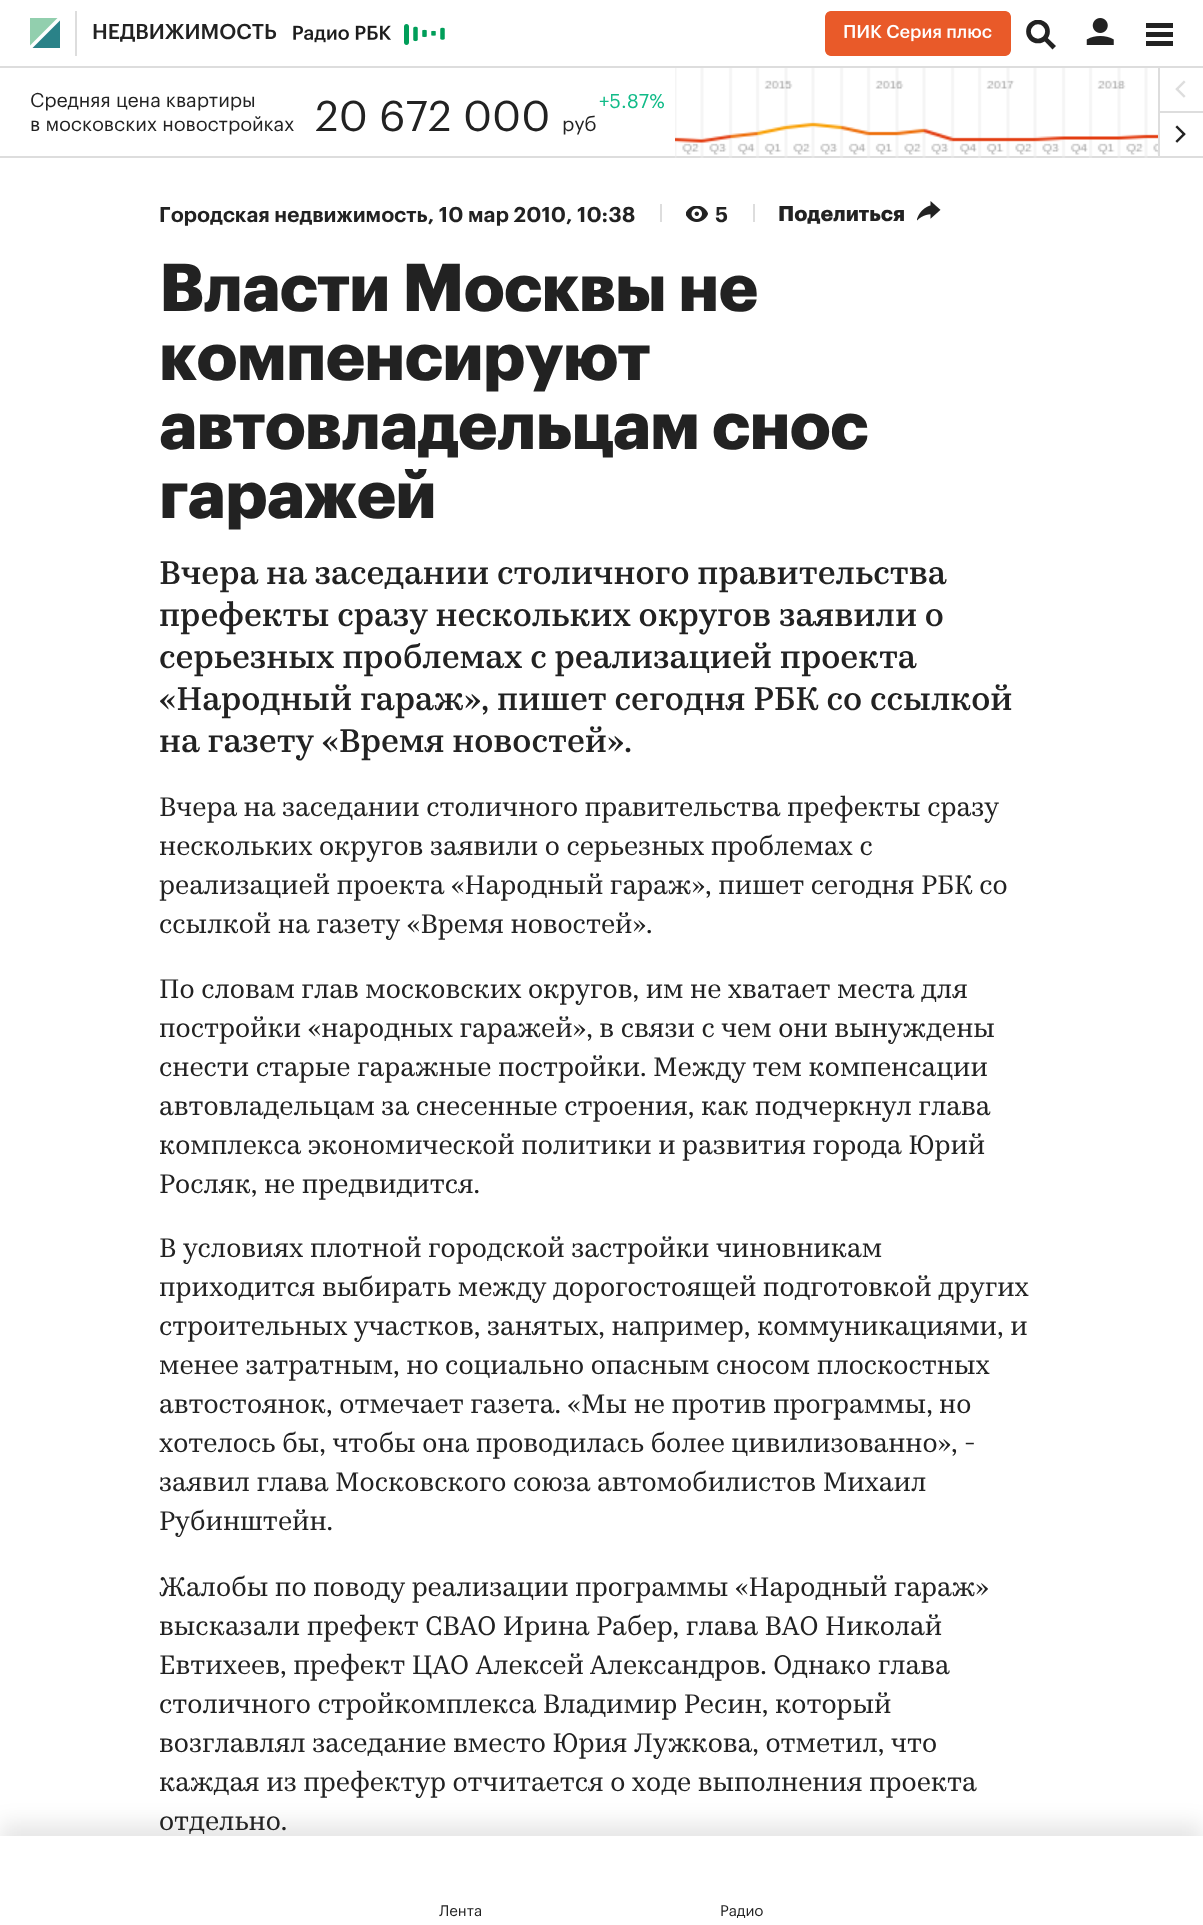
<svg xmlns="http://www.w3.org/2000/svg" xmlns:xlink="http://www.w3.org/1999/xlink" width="1203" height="1925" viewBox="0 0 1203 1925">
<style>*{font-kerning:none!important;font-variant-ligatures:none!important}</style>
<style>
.cls-1{font:500 21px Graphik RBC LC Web;fill:#222222}
.cls-2{font:19.5px Graphik RBC LC Web;fill:#222222}
.cls-3{font:42px Graphik RBC LC Web;fill:#222222}
.cls-4{font:19.5px Graphik RBC LC Web;fill:#11bb88}
.cls-5{font:600 21px Graphik RBC LC Web;fill:#222222}
.cls-6{font:bold 21px Graphik RBC LC Web;fill:#222222}
.cls-7{font:bold 66px Graphik RBC LC Web;letter-spacing:-0.75px;fill:#222222}
.cls-8{font:500 33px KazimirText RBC;fill:#222222}
.cls-9{font:27px KazimirText RBC;fill:#222222}
.cls-10{font:15px Graphik RBC LC Web;fill:#222222}
</style>
<defs>
<clipPath id="clip1"><rect x="1026" y="20" width="30" height="30"/></clipPath>
</defs>
<rect width="100%" height="100%" fill="#ffffff"/>
<rect fill="#dddddd" x="0" y="66" width="1203" height="2"/>
<path fill="#92cfae" fill-rule="evenodd" d="M30 18V45.5L57.5 18Z"/>
<path fill="#2a8288" fill-rule="evenodd" d="M32.5 48H60V20.5Z"/>
<rect fill="#dddddd" x="75" y="11" width="2" height="45"/>
<image xlink:href="image0.png" x="293" y="24" width="152" height="21"/>
<image xlink:href="image1.png" x="825" y="11" width="186" height="45"/>
<path fill="#222222" fill-rule="evenodd" d="M1056 46L1052.5 49.5L1041 37.5L1044 34.5Z"/>
<circle fill="#ffffff" cx="1038" cy="31.5" r="9.5"/>
<g clip-path="url(#clip1)">
<circle fill="none" stroke="#222222" stroke-width="4.7" cx="1038" cy="31.5" r="9.5"/>
</g>
<image xlink:href="image2.png" x="1086" y="18" width="28" height="27"/>
<rect fill="#222222" x="1146" y="23" width="27" height="5"/>
<rect fill="#222222" x="1146" y="32" width="27" height="5"/>
<rect fill="#222222" x="1146" y="41" width="27" height="5"/>
<rect fill="#dddddd" x="0" y="156" width="1203" height="2"/>
<image xlink:href="image3.png" x="675" y="68" width="483" height="90"/>
<image xlink:href="image4.png" x="1175" y="80" width="11" height="18"/>
<rect fill="#dddddd" x="1158" y="68" width="2" height="43"/>
<rect fill="#dddddd" x="1158" y="111" width="45" height="2"/>
<image xlink:href="image5.png" x="1175" y="125" width="11" height="18"/>
<rect fill="#dddddd" x="1158" y="113" width="2" height="43"/>
<rect fill="#dddddd" x="660" y="204" width="2" height="18"/>
<image xlink:href="image6.png" x="686" y="206" width="22" height="16"/>
<rect fill="#dddddd" x="753" y="204" width="2" height="18"/>
<image xlink:href="image7.png" x="917" y="201" width="24" height="20"/>
<rect fill="#000000" fill-opacity="0.1" filter="blur(11px)" x="0" y="1824" width="1203" height="90"/>
<rect fill="#ffffff" x="0" y="1836" width="1203" height="89"/>
<text class="cls-1" x="92" y="39">НЕДВИЖИМОСТЬ</text>
<text class="cls-2"><tspan x="30" y="107">Средняя цена квартиры</tspan><tspan x="30" y="131">в московских новостройках</tspan></text>
<text class="cls-3" x="315" y="131">20 672 000</text>
<text class="cls-2" x="562" y="131">руб</text>
<text class="cls-4" x="599" y="108">+5.87%</text>
<text class="cls-5" x="159" y="222">Городская недвижимость, 10 мар 2010, 10:38</text>
<text class="cls-5" x="715" y="222">5</text>
<text class="cls-6" x="778" y="221">Поделиться</text>
<text class="cls-7"><tspan x="159" y="311">Власти Москвы не</tspan><tspan x="159" y="380">компенсируют</tspan><tspan x="159" y="449">автовладельцам снос</tspan><tspan x="159" y="518">гаражей</tspan></text>
<text class="cls-8"><tspan x="159" y="584">Вчера на заседании столичного правительства</tspan><tspan x="159" y="626">префекты сразу нескольких округов заявили о</tspan><tspan x="159" y="668">серьезных проблемах с реализацией проекта</tspan><tspan x="159" y="710">«Народный гараж», пишет сегодня РБК со ссылкой</tspan><tspan x="159" y="752">на газету «Время новостей».</tspan></text>
<text class="cls-9"><tspan x="159" y="816">Вчера на заседании столичного правительства префекты сразу</tspan><tspan x="159" y="855">нескольких округов заявили о серьезных проблемах с</tspan><tspan x="159" y="894">реализацией проекта «Народный гараж», пишет сегодня РБК со</tspan><tspan x="159" y="933">ссылкой на газету «Время новостей».</tspan></text>
<text class="cls-9"><tspan x="159" y="998">По словам глав московских округов, им не хватает места для</tspan><tspan x="159" y="1037">постройки «народных гаражей», в связи с чем они вынуждены</tspan><tspan x="159" y="1076">снести старые гаражные постройки. Между тем компенсации</tspan><tspan x="159" y="1115">автовладельцам за снесенные строения, как подчеркнул глава</tspan><tspan x="159" y="1154">комплекса экономической политики и развития города Юрий</tspan><tspan x="159" y="1193">Росляк, не предвидится.</tspan></text>
<text class="cls-9"><tspan x="159" y="1257">В условиях плотной городской застройки чиновникам</tspan><tspan x="159" y="1296">приходится выбирать между дорогостоящей подготовкой других</tspan><tspan x="159" y="1335">строительных участков, занятых, например,</tspan></text>
<text class="cls-9" x="757" y="1335">коммуникациями, и</text>
<text class="cls-9"><tspan x="159" y="1374">менее затратным, но социально опасным сносом плоскостных</tspan><tspan x="159" y="1413">автостоянок, отмечает газета. «Мы не против программы,</tspan></text>
<text class="cls-9" x="939" y="1413">но</text>
<text class="cls-9" x="159" y="1452">хотелось бы, чтобы она проводилась более цивилизованно»,</text>
<text class="cls-9" x="964" y="1452">-</text>
<text class="cls-9"><tspan x="159" y="1491">заявил глава Московского союза автомобилистов Михаил</tspan><tspan x="159" y="1530">Рубинштейн.</tspan></text>
<text class="cls-9"><tspan x="159" y="1596">Жалобы по поводу реализации программы «Народный гараж»</tspan><tspan x="159" y="1635">высказали префект СВАО Ирина Рабер, глава ВАО Николай</tspan><tspan x="159" y="1674">Евтихеев, префект ЦАО Алексей</tspan></text>
<text class="cls-9" x="590" y="1674">Александров. Однако глава</text>
<text class="cls-9"><tspan x="159" y="1713">столичного стройкомплекса Владимир Ресин, который</tspan><tspan x="159" y="1752">возглавлял заседание вместо Юрия Лужкова, отметил,</tspan></text>
<text class="cls-9" x="891" y="1752">что</text>
<text class="cls-9"><tspan x="159" y="1791">каждая из префектур отчитается о ходе выполнения проекта</tspan><tspan x="159" y="1830">отдельно.</tspan></text>
<text class="cls-10" x="439" y="1916">Лента</text>
<text class="cls-10" x="720" y="1916">Радио</text>
</svg>
